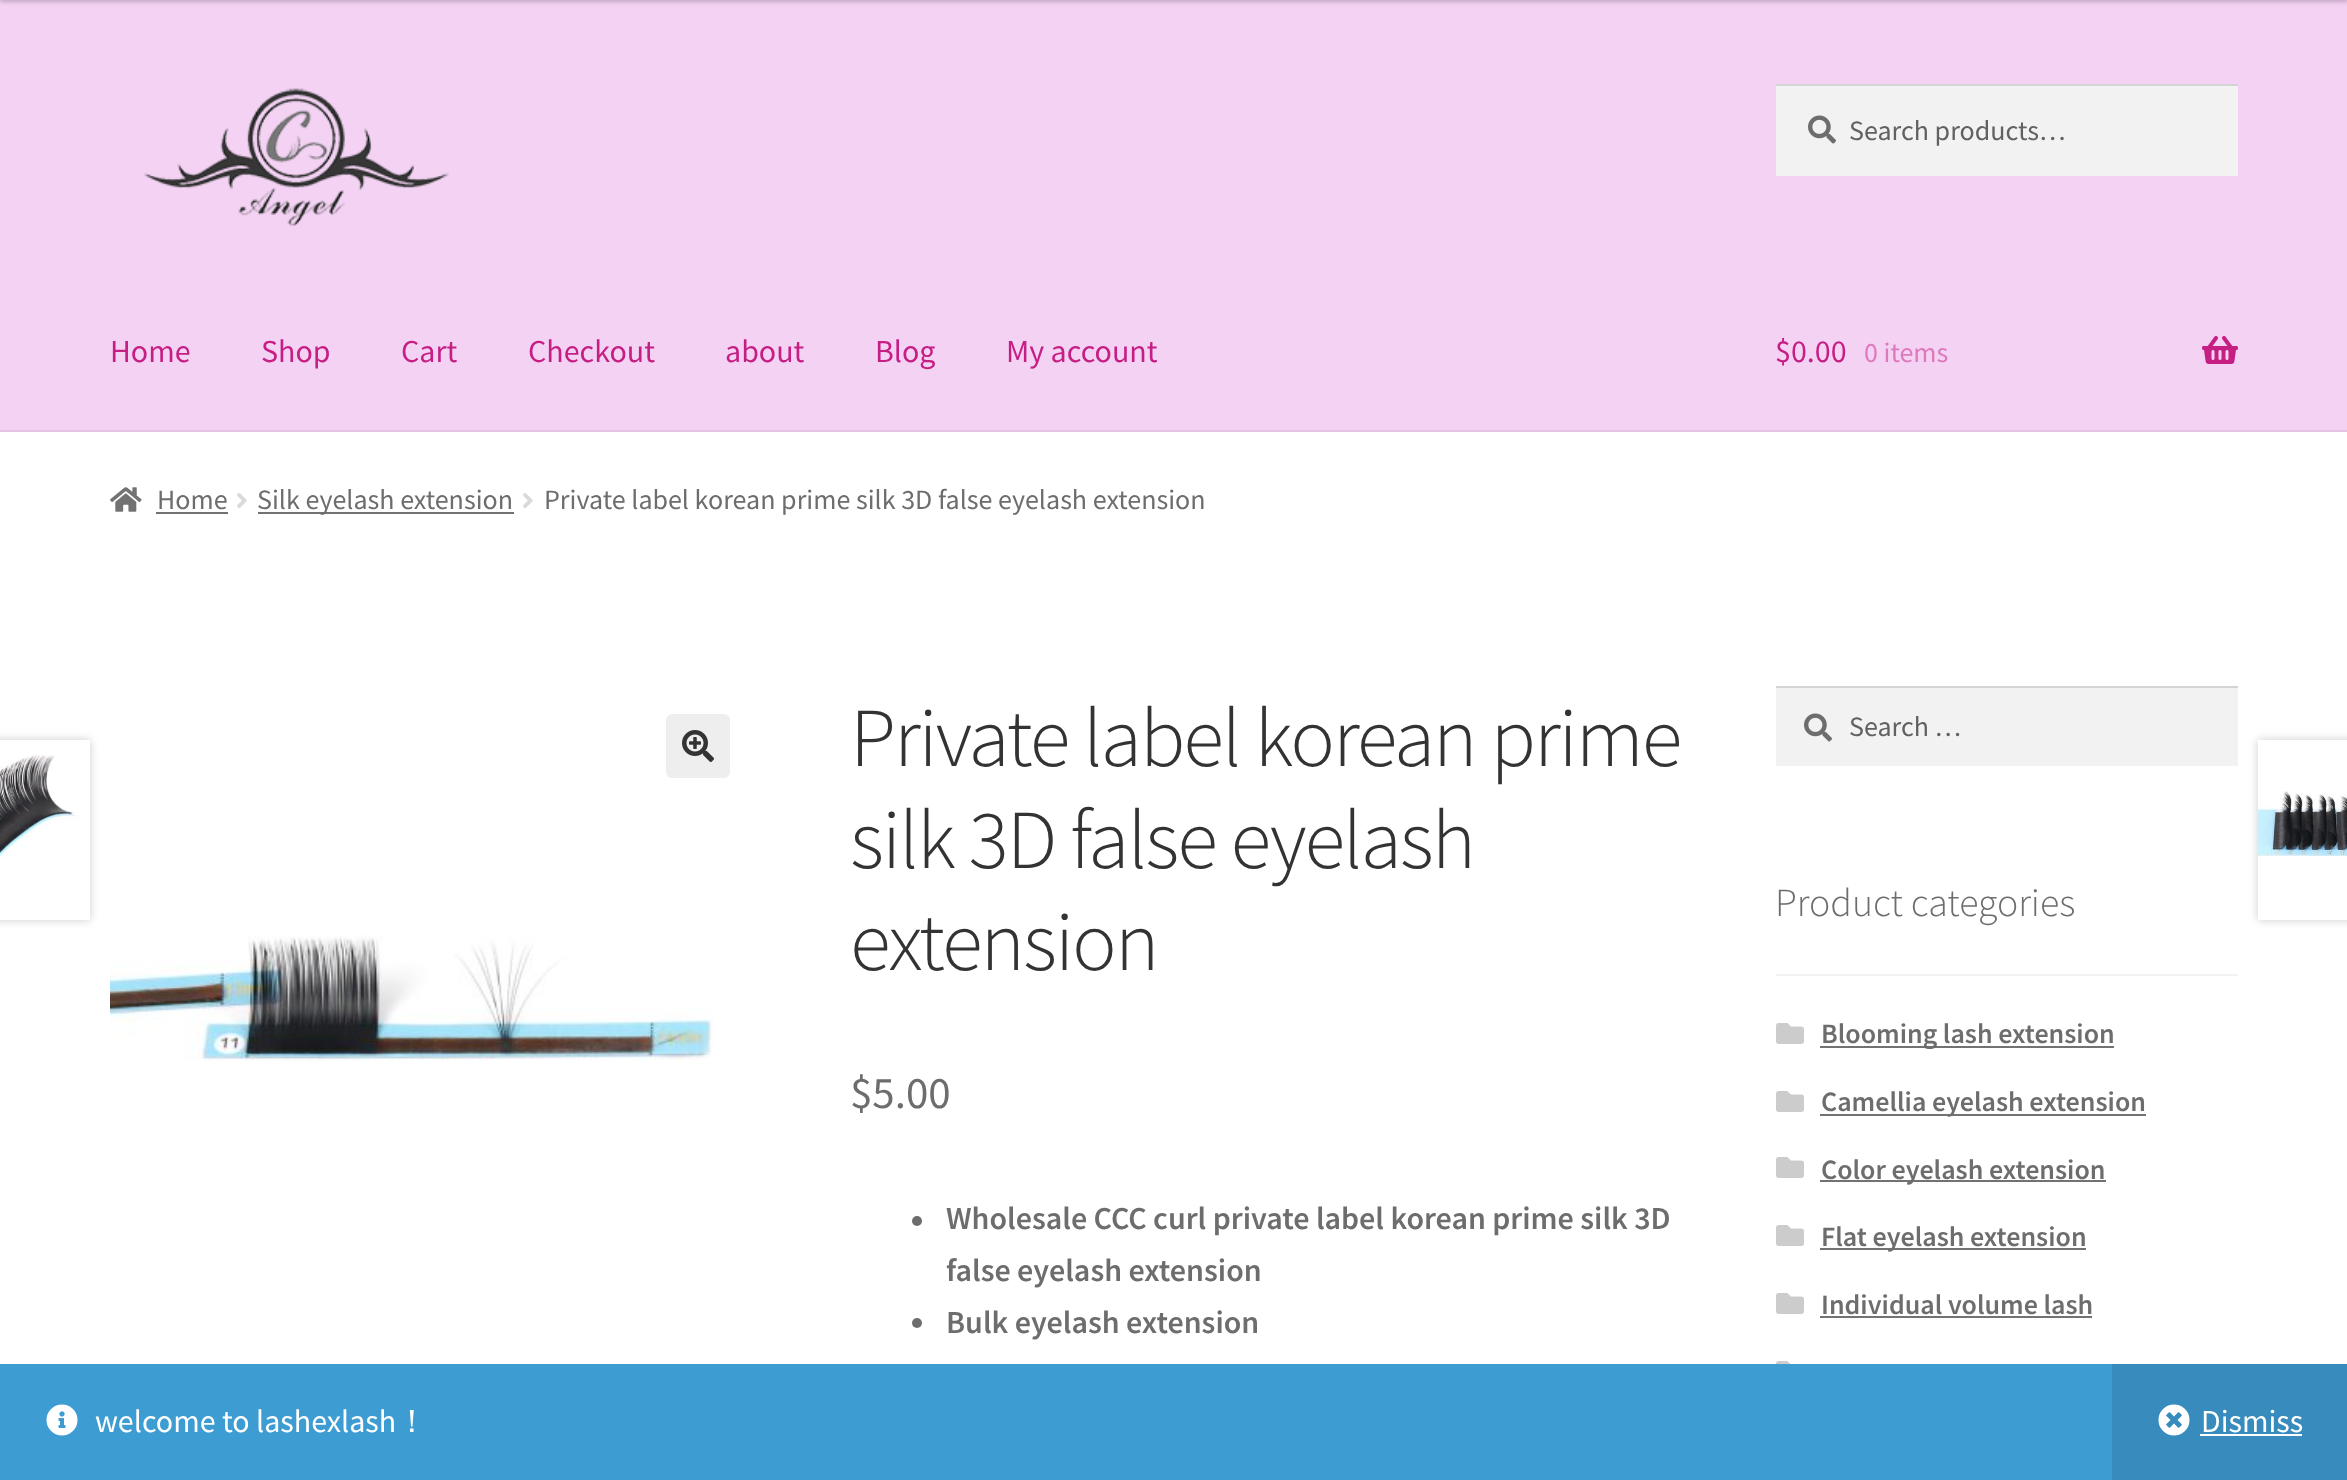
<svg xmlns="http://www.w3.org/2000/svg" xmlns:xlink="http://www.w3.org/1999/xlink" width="2347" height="1480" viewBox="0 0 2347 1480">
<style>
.cls-1{font:28px Source Sans Pro;fill:#616161}
.cls-2{font:32px Source Sans Pro;fill:#c61f84}
.cls-3{font:28px Source Sans Pro;fill:#dd79bc}
.cls-4{font:28px Source Sans Pro;fill:#6d6d6d}
.cls-5{font:300 83.75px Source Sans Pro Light;letter-spacing:-2px;fill:#333333}
.cls-6{font:45px Source Sans Pro;fill:#6d6d6d}
.cls-7{font:600 32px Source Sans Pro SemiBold;fill:#6d6d6d}
.cls-8{font:300 39.75px Source Sans Pro Light;fill:#6d6d6d}
.cls-9{font:600 28px Source Sans Pro SemiBold;fill:#6d6d6d}
.cls-10{font:32px Source Sans Pro;fill:#ffffff}
.cls-11{font:500 32px WenQuanYi Zen Hei;fill:#ffffff}
</style>
<defs>
<clipPath id="clip1"><path d="M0 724H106V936H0ZM-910 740H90V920H-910Z" clip-rule="evenodd"/></clipPath>
<clipPath id="clip2"><path d="M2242 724H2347V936H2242ZM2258 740H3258V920H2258Z" clip-rule="evenodd"/></clipPath>
</defs>
<rect width="100%" height="100%" fill="#ffffff"/>
<rect fill="#f4d2f4" x="0" y="0" width="2347" height="430"/>
<rect fill="#000000" fill-opacity="0.2" filter="blur(2px)" x="0" y="-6" width="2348" height="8"/>
<rect fill="#e5c3e5" x="0" y="430" width="2347" height="2"/>
<image xlink:href="image0.png" x="143" y="88" width="306" height="138"/>
<rect fill="#f2f2f2" x="1776" y="86" width="462" height="90"/>
<image xlink:href="image1.png" x="1808" y="115" width="28" height="29"/>
<rect fill="#d4d4d4" x="1776" y="84" width="462" height="2"/>
<image xlink:href="image2.png" x="2202" y="336" width="36" height="28"/>
<image xlink:href="image3.png" x="110" y="487" width="32" height="25"/>
<rect fill="#727272" x="156" y="512" width="72" height="2"/>
<image xlink:href="image4.png" x="237" y="493" width="10" height="16"/>
<rect fill="#727272" x="258" y="512" width="256" height="2"/>
<image xlink:href="image4.png" x="523" y="493" width="10" height="16"/>
<rect fill="#eeeeee" x="666" y="714" width="64" height="64" rx="6"/>
<image xlink:href="image5.png" x="682" y="730" width="32" height="32"/>
<image xlink:href="image6.png" x="110" y="935" width="604" height="126"/>
<circle fill="#6d6d6d" cx="917" cy="1221" r="5"/>
<circle fill="#6d6d6d" cx="917" cy="1323" r="5"/>
<g clip-path="url(#clip1)">
<rect fill="#000000" fill-opacity="0.2" filter="blur(5px)" x="-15" y="740" width="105" height="180"/>
</g>
<image xlink:href="image7.png" x="0" y="755" width="79" height="104"/>
<g clip-path="url(#clip2)">
<rect fill="#000000" fill-opacity="0.2" filter="blur(5px)" x="2258" y="740" width="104" height="180"/>
</g>
<image xlink:href="image8.png" x="2258" y="791" width="89" height="65"/>
<rect fill="#f2f2f2" x="1776" y="688" width="462" height="78"/>
<image xlink:href="image1.png" x="1804" y="713" width="28" height="29"/>
<rect fill="#d4d4d4" x="1776" y="686" width="462" height="2"/>
<rect fill="#f2f2f2" x="1776" y="974" width="462" height="2"/>
<image xlink:href="image9.png" x="1776" y="1023" width="28" height="21"/>
<rect fill="#727272" x="1820" y="1046" width="294" height="2"/>
<image xlink:href="image9.png" x="1776" y="1091" width="28" height="21"/>
<rect fill="#727272" x="1820" y="1114" width="326" height="2"/>
<image xlink:href="image9.png" x="1776" y="1157" width="28" height="21"/>
<rect fill="#727272" x="1820" y="1180" width="286" height="2"/>
<image xlink:href="image9.png" x="1776" y="1225" width="28" height="21"/>
<rect fill="#727272" x="1820" y="1248" width="266" height="2"/>
<image xlink:href="image9.png" x="1776" y="1293" width="28" height="21"/>
<rect fill="#727272" x="1820" y="1316" width="272" height="2"/>
<image xlink:href="image10.png" x="1776" y="1361" width="15" height="3"/>
<rect fill="#3d9cd2" x="0" y="1364" width="2112" height="116"/>
<image xlink:href="image11.png" x="46" y="1404" width="32" height="32"/>
<rect fill="#378cbd" x="2112" y="1364" width="235" height="116"/>
<image xlink:href="image12.png" x="2158" y="1404" width="32" height="32"/>
<rect fill="#ffffff" x="2200" y="1434" width="102" height="2"/>
<text class="cls-1" x="1849" y="140">Search products…</text>
<text class="cls-2" x="110" y="362">Home</text>
<text class="cls-2" x="261" y="362">Shop</text>
<text class="cls-2" x="401" y="362">Cart</text>
<text class="cls-2" x="528" y="362">Checkout</text>
<text class="cls-2" x="725" y="362">about</text>
<text class="cls-2" x="875" y="362">Blog</text>
<text class="cls-2" x="1006" y="362">My account</text>
<text class="cls-2" x="1775" y="362">$0.00</text>
<text class="cls-3" x="1864" y="362">0 items</text>
<text class="cls-4" x="157" y="509">Home</text>
<text class="cls-4" x="257" y="509">Silk eyelash extension</text>
<text class="cls-4" x="544" y="509">Private label korean prime silk 3D false eyelash extension</text>
<text class="cls-5"><tspan x="850" y="766">Private label korean prime</tspan><tspan x="850" y="868">silk 3D false eyelash</tspan><tspan x="850" y="970">extension</tspan></text>
<text class="cls-6" x="850" y="1108">$5.00</text>
<text class="cls-7"><tspan x="946" y="1229">Wholesale CCC curl private label korean prime silk 3D</tspan><tspan x="946" y="1281">false eyelash extension</tspan><tspan x="946" y="1333">Bulk eyelash extension</tspan></text>
<text class="cls-1" x="1849" y="736">Search …</text>
<text class="cls-8" x="1775" y="916">Product categories</text>
<text class="cls-9" x="1821" y="1043">Blooming lash extension</text>
<text class="cls-9" x="1821" y="1111">Camellia eyelash extension</text>
<text class="cls-9" x="1821" y="1179">Color eyelash extension</text>
<text class="cls-9" x="1821" y="1246">Flat eyelash extension</text>
<text class="cls-9" x="1821" y="1314">Individual volume lash</text>
<text class="cls-10" x="95" y="1432">welcome to lashexlash</text>
<text class="cls-11" x="396" y="1432">！</text>
<text class="cls-10" x="2201" y="1432">Dismiss</text>
</svg>
